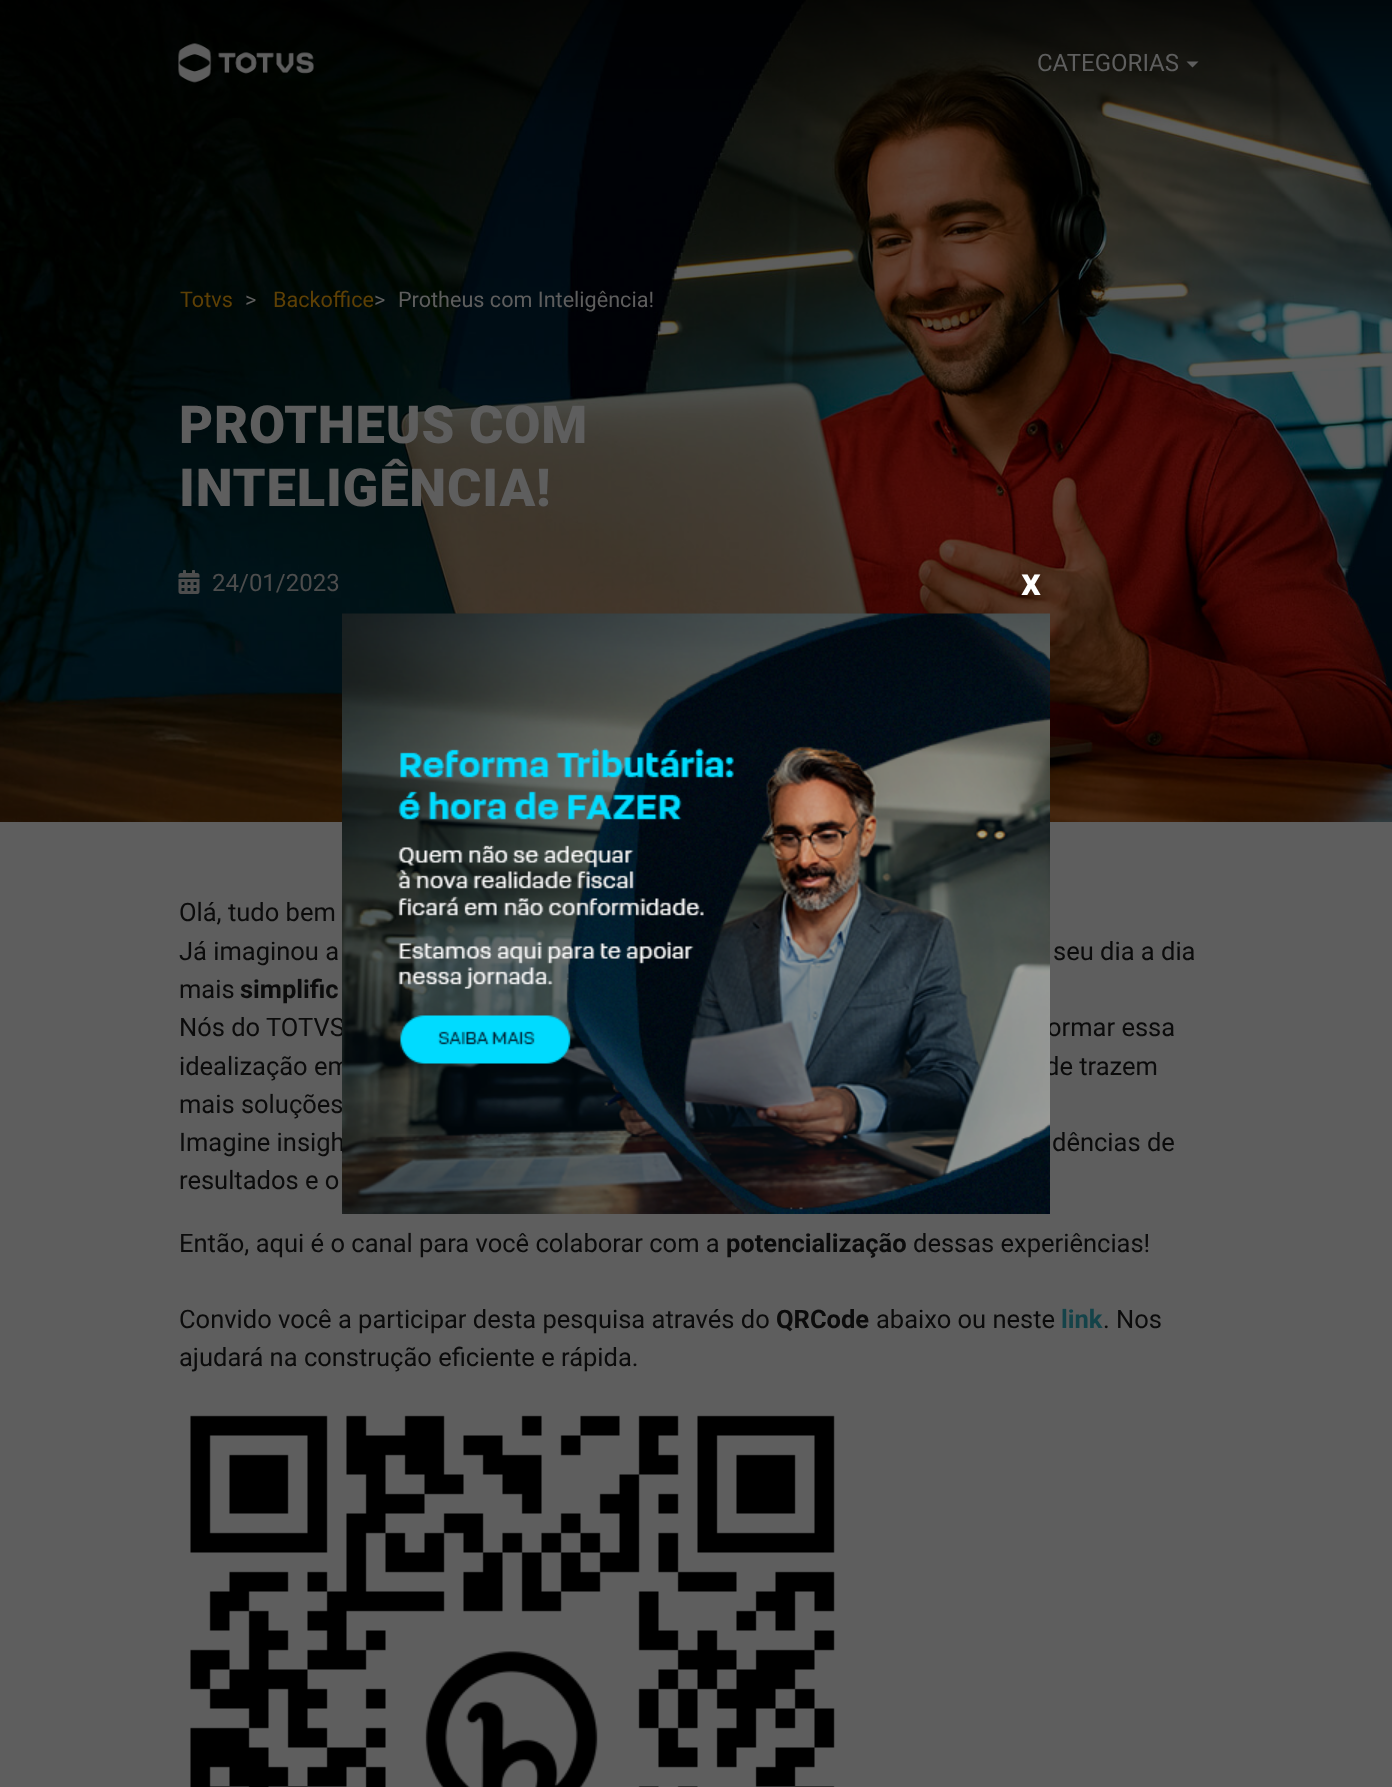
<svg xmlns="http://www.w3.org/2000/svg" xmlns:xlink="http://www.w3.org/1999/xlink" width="1392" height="1787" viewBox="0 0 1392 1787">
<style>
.cls-1{font:24px Roboto;fill:#5e5e5e}
.cls-2{font:21.6px Roboto;fill:#5e4005}
.cls-3{font:21.6px Roboto;fill:#5e5e5e}
.cls-4{font:900 52.5px Roboto;letter-spacing:0.8px;fill:#5e5e5e}
.cls-5{font:24px Roboto;fill:#4d4d4d}
.cls-6{font:25.5px Roboto;fill:#0b0b0b}
.cls-7{font:bold 25.5px Roboto;fill:#0b0b0b}
.cls-8{font:bold 25.5px Roboto;fill:#144349}
.cls-9{font:bold 39px Roboto;fill:#ffffff}
</style>
<rect width="100%" height="100%" fill="#5e5e5e"/>
<image xlink:href="image1.png" x="0" y="0" width="1392" height="822"/>
<image xlink:href="image0.png" x="178" y="43" width="136" height="40"/>
<path fill="#5e5e5e" d="M1186.5 61.5H1198.5L1192.5 67.5Z"/>
<image xlink:href="image2.png" x="178" y="570" width="22" height="24"/>
<image xlink:href="image3.png" x="190" y="1415" width="645" height="372"/>
<text class="cls-1" x="1037" y="71">CATEGORIAS</text>
<text class="cls-2" x="180" y="307">Totvs</text>
<text class="cls-3" x="245" y="307">&gt;</text>
<text class="cls-2" x="273" y="307">Backoffice</text>
<text class="cls-3" x="374" y="307">&gt;</text>
<text class="cls-3" x="398" y="307">Protheus com Inteligência!</text>
<text class="cls-4"><tspan x="179" y="443">PROTHEUS COM</tspan><tspan x="179" y="506">INTELIGÊNCIA!</tspan></text>
<text class="cls-5" x="212" y="591">24/01/2023</text>
<text class="cls-6"><tspan x="179" y="921">Olá, tudo bem</tspan><tspan x="179" y="960">Já imaginou a</tspan></text>
<text class="cls-6" x="1053" y="960">seu dia a dia</text>
<text class="cls-6" x="179" y="998">mais</text>
<text class="cls-7" x="240" y="998">simplific</text>
<text class="cls-6" x="179" y="1036">Nós do TOTVS</text>
<text class="cls-6" x="1047" y="1036">ormar essa</text>
<text class="cls-6" x="179" y="1075">idealização em</text>
<text class="cls-6" x="1045" y="1075">de trazem</text>
<text class="cls-6"><tspan x="179" y="1113">mais soluções</tspan><tspan x="179" y="1151">Imagine insigh</tspan></text>
<text class="cls-6" x="1052" y="1151">dências de</text>
<text class="cls-6" x="179" y="1189">resultados e o</text>
<text class="cls-6" x="179" y="1252">Então, aqui é o canal para você colaborar com a</text>
<text class="cls-7" x="726" y="1252">potencialização</text>
<text class="cls-6" x="913" y="1252">dessas experiências!</text>
<text class="cls-6" x="179" y="1328">Convido você a participar desta pesquisa através do</text>
<text class="cls-7" x="776" y="1328">QRCode</text>
<text class="cls-6" x="876" y="1328">abaixo ou neste</text>
<text class="cls-8" x="1061" y="1328">link</text>
<text class="cls-6" x="1103" y="1328">. Nos</text>
<text class="cls-6" x="179" y="1366">ajudará na construção eficiente e rápida.</text>
<text class="cls-9" x="1021" y="595">x</text>
<image xlink:href="image4.png" x="342" y="613" width="708" height="601"/>
</svg>
